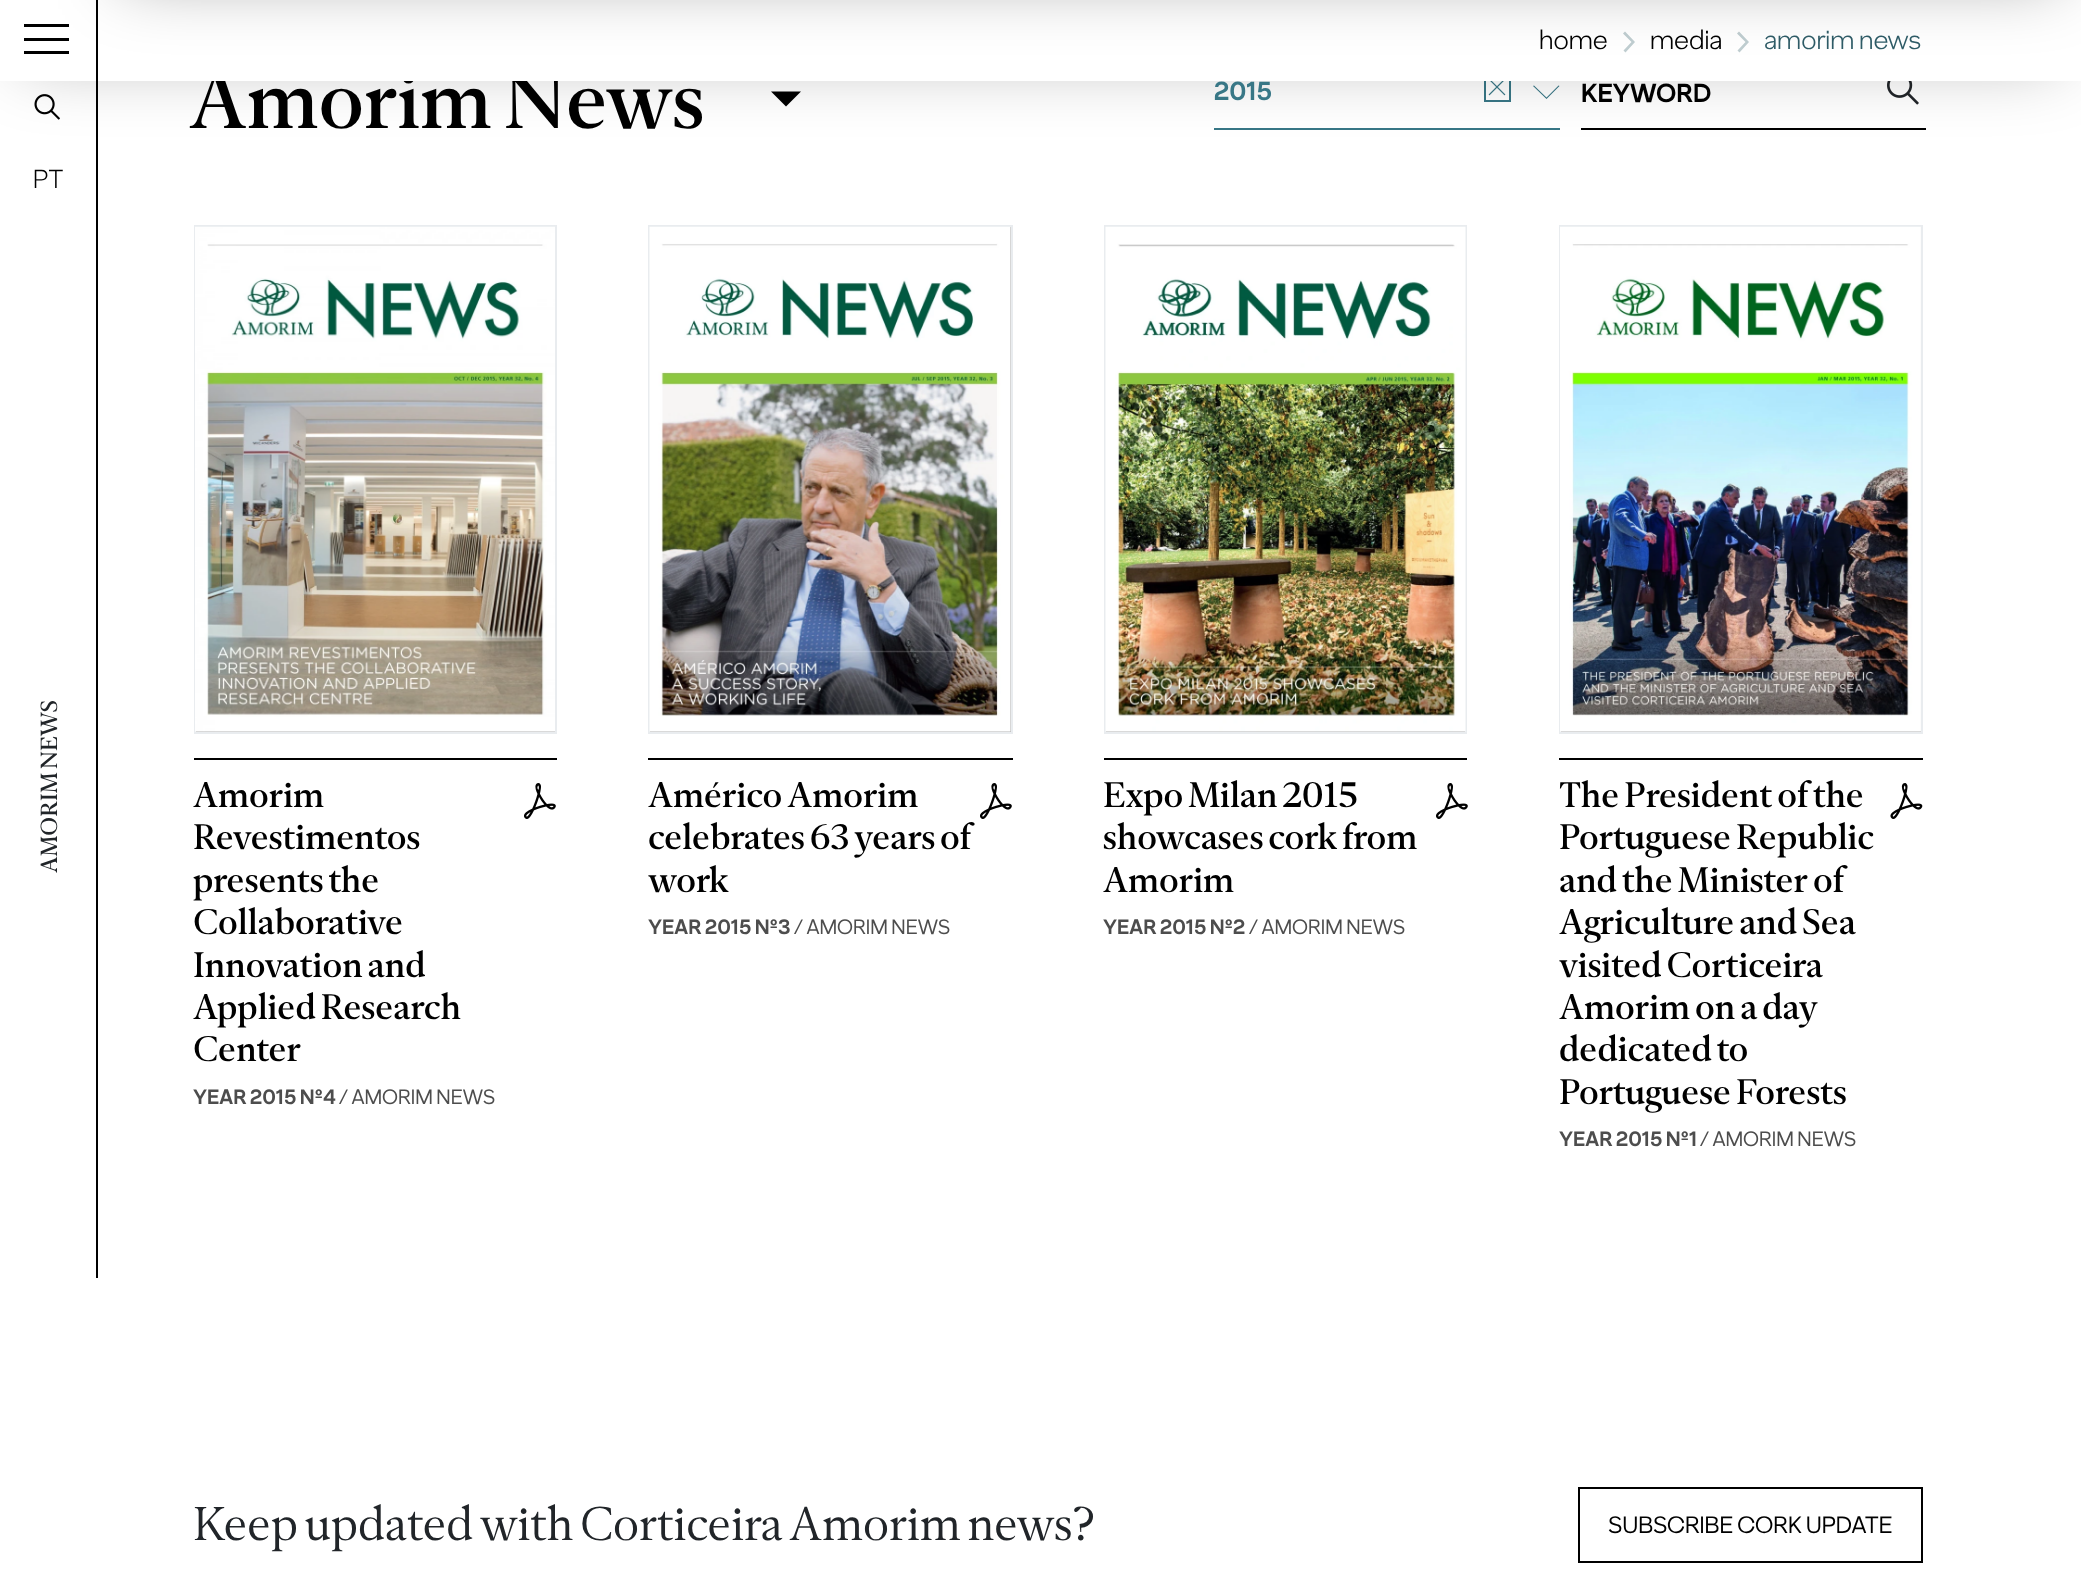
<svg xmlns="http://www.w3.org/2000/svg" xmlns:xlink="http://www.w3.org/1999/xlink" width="2081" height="1587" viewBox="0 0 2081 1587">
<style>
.cls-1{font:300 26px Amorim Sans;fill:#000000}
.cls-2{font:500 23.25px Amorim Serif;fill:#212529}
.cls-3{font:500 81.75px Amorim Serif;fill:#000000}
.cls-4{font:300 28px Amorim Sans;fill:#2e5b66}
.cls-5{font:300 28px Amorim Sans;fill:#000000}
.cls-6{font:bold 26px Amorim Sans;fill:#387786}
.cls-7{font:bold 26px Amorim Sans;fill:#000000}
.cls-8{font:500 35.4px Amorim Serif;fill:#000000}
.cls-9{font:bold 20.75px Amorim Sans;fill:#4d4d4d}
.cls-10{font:20.75px Amorim Sans;fill:#4d4d4d}
.cls-11{font:47.25px Amorim Serif;fill:#212529}
.cls-12{font:23.75px Amorim Sans;fill:#000000}
</style>
<rect width="100%" height="100%" fill="#ffffff"/>
<rect fill="#000000" x="96" y="81" width="2" height="1197"/>
<path fill="#000000" d="M771 91.5H801L786 106.5Z"/>
<rect fill="#387786" x="1214" y="128" width="346" height="2"/>
<path fill="#387786" d="M1546.5 97.5L1558.5 85.5L1559.5 86L1546.5 99L1533 86L1534 85.5Z"/>
<rect fill="none" stroke="#387786" stroke-width="2" x="1485" y="76" width="25" height="25"/>
<image xlink:href="image1.png" x="1488" y="81" width="18" height="15"/>
<rect fill="#000000" x="1581" y="128" width="345" height="2"/>
<image xlink:href="image2.png" x="1887" y="81" width="32" height="24"/>
<rect fill="#000000" fill-opacity="0.33" filter="blur(35px)" x="23" y="-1" width="2037" height="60"/>
<image xlink:href="image0.png" x="34" y="94" width="26" height="26"/>
<rect fill="#b3b3b3" x="196" y="731" width="359" height="1"/>
<rect fill="none" stroke="#e9ecef" stroke-width="2" x="195" y="226" width="361" height="507"/>
<image xlink:href="image3.png" x="195" y="226" width="360" height="506"/>
<rect fill="#000000" x="194" y="758" width="363" height="2"/>
<image xlink:href="image4.png" x="524" y="783" width="32" height="36"/>
<rect fill="#b3b3b3" stroke="#e9ecef" stroke-width="2" x="649" y="226" width="363" height="507"/>
<image xlink:href="image5.png" x="649" y="226" width="362" height="506"/>
<rect fill="#000000" x="648" y="758" width="365" height="2"/>
<image xlink:href="image4.png" x="980" y="783" width="32" height="36"/>
<rect fill="#b3b3b3" x="1106" y="731" width="359" height="1"/>
<rect fill="none" stroke="#e9ecef" stroke-width="2" x="1105" y="226" width="361" height="507"/>
<image xlink:href="image6.png" x="1105" y="226" width="361" height="506"/>
<rect fill="#000000" x="1104" y="758" width="363" height="2"/>
<image xlink:href="image4.png" x="1436" y="783" width="32" height="36"/>
<rect fill="#b3b3b3" stroke="#e9ecef" stroke-width="2" x="1560" y="226" width="362" height="507"/>
<image xlink:href="image7.png" x="1560" y="226" width="361" height="506"/>
<rect fill="#000000" x="1559" y="758" width="364" height="2"/>
<image xlink:href="image8.png" x="1890" y="783" width="33" height="36"/>
<rect fill="none" stroke="#000000" stroke-width="2" x="1579" y="1488" width="343" height="74"/>
<text class="cls-1" x="33" y="188">PT</text>
<text class="cls-2" x="57" y="873" transform="rotate(-90 57 873)">AMORIM NEWS</text>
<text class="cls-3" x="189" y="128">Amorim News</text>
<rect fill="#ffffff" x="0" y="0" width="2081" height="81"/>
<rect fill="#000000" x="24" y="51" width="45" height="3"/>
<rect fill="#000000" x="24" y="38" width="45" height="3"/>
<rect fill="#000000" x="24" y="24" width="45" height="3"/>
<path fill="#c0ced1" fill-rule="evenodd" d="M1745.5 42L1737 33.5L1739 31.5L1749 42L1739.5 52.5L1737.5 50.5Z"/>
<path fill="#c0ced1" fill-rule="evenodd" d="M1631.5 42L1623 33.5L1625 31.5L1635 42L1625.5 52.5L1623.5 50.5Z"/>
<rect fill="#000000" x="96" y="0" width="2" height="81"/>
<rect fill="#000000" fill-opacity="0.4" filter="blur(35px)" x="122" y="-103" width="1938" height="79"/>
<text class="cls-4" x="1764" y="49">amorim news</text>
<text class="cls-5" x="1650" y="49">media</text>
<text class="cls-5" x="1539" y="49">home</text>
<text class="cls-6" x="1214" y="100">2015</text>
<text class="cls-7" x="1581" y="102">KEYWORD</text>
<text class="cls-8"><tspan x="193" y="807">Amorim</tspan><tspan x="193" y="849">Revestimentos</tspan><tspan x="193" y="892">presents the</tspan><tspan x="193" y="934">Collaborative</tspan><tspan x="193" y="977">Innovation and</tspan><tspan x="193" y="1019">Applied Research</tspan><tspan x="193" y="1061">Center</tspan></text>
<text class="cls-9" x="193" y="1104">YEAR 2015 Nº4</text>
<text class="cls-10" x="339" y="1104">/ AMORIM NEWS</text>
<text class="cls-8"><tspan x="648" y="807">Américo Amorim</tspan><tspan x="648" y="849">celebrates 63 years of</tspan><tspan x="648" y="892">work</tspan></text>
<text class="cls-9" x="648" y="934">YEAR 2015 Nº3</text>
<text class="cls-10" x="794" y="934">/ AMORIM NEWS</text>
<text class="cls-8"><tspan x="1103" y="807">Expo Milan 2015</tspan><tspan x="1103" y="849">showcases cork from</tspan><tspan x="1103" y="892">Amorim</tspan></text>
<text class="cls-9" x="1103" y="934">YEAR 2015 Nº2</text>
<text class="cls-10" x="1249" y="934">/ AMORIM NEWS</text>
<text class="cls-8"><tspan x="1559" y="807">The President of the</tspan><tspan x="1559" y="849">Portuguese Republic</tspan><tspan x="1559" y="892">and the Minister of</tspan><tspan x="1559" y="934">Agriculture and Sea</tspan><tspan x="1559" y="977">visited Corticeira</tspan><tspan x="1559" y="1019">Amorim on a day</tspan><tspan x="1559" y="1061">dedicated to</tspan><tspan x="1559" y="1104">Portuguese Forests</tspan></text>
<text class="cls-9" x="1559" y="1146">YEAR 2015 Nº1</text>
<text class="cls-10" x="1700" y="1146">/ AMORIM NEWS</text>
<text class="cls-11" x="193" y="1540">Keep updated with Corticeira Amorim news?</text>
<text class="cls-12" x="1608" y="1533">SUBSCRIBE CORK UPDATE</text>
</svg>
